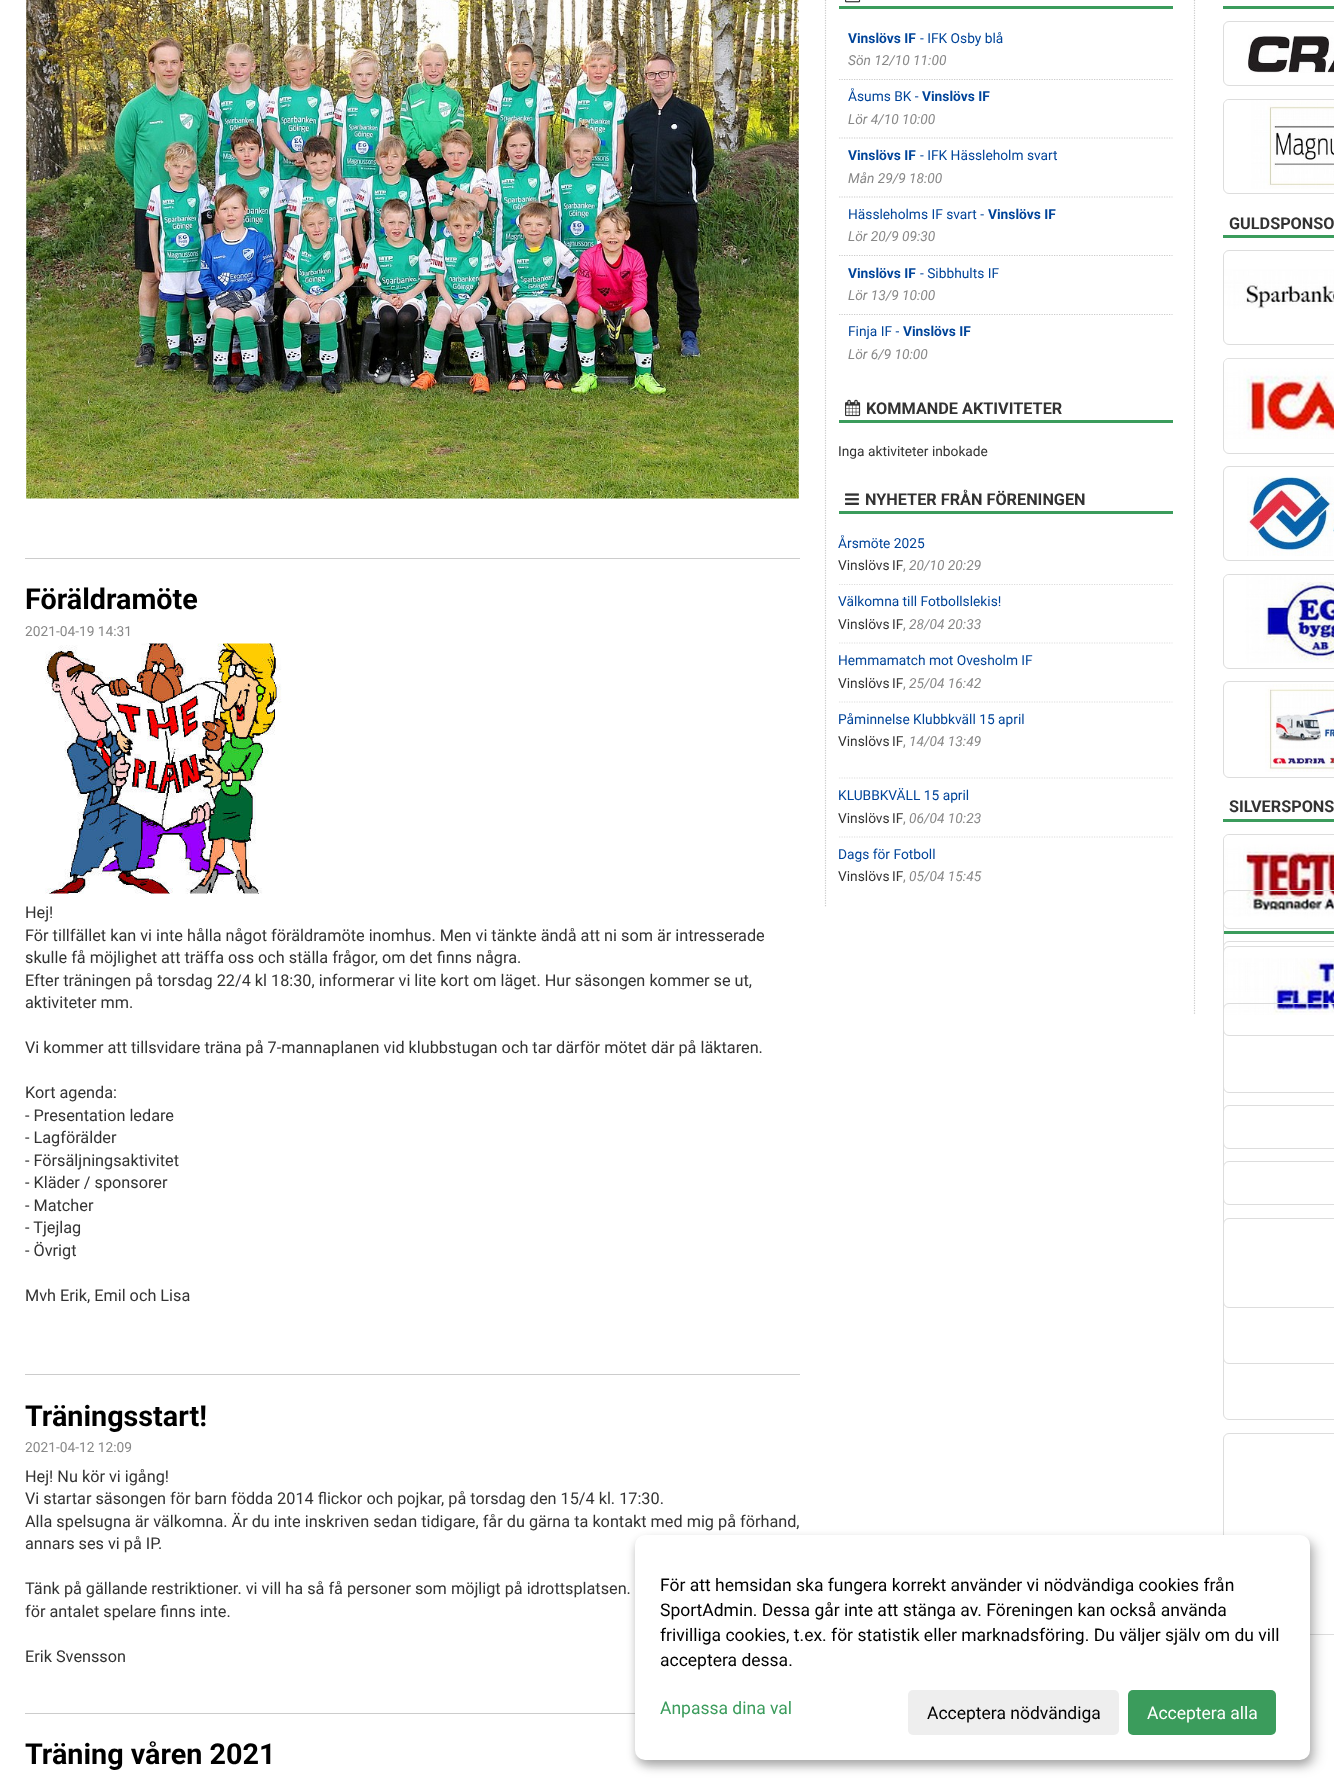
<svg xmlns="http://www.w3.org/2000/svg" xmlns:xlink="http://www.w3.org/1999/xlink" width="1334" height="1784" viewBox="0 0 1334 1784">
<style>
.cls-1{font:bold 13.75px Roboto;fill:#004499}
.cls-2{font:13.75px Roboto;fill:#004499}
.cls-3{font:italic 13.75px Roboto;fill:#888888}
.cls-4{font:bold 16.25px Roboto;fill:#333333}
.cls-5{font:13.75px Roboto;fill:#333333}
.cls-6{font:13.75px Roboto;fill:#888888}
.cls-7{font:bold 28.75px Roboto;fill:#000000}
.cls-8{font:16.25px Roboto;fill:#333333}
.cls-9{font:17.5px Roboto;fill:#000000}
.cls-10{font:17.5px Roboto;fill:#3b9c5c}
.cls-11{font:17.5px Roboto;fill:#ffffff}
</style>
<rect width="100%" height="100%" fill="#ffffff"/>
<path fill="none" stroke="#cccccc" stroke-width="1.2" stroke-dasharray="1.25 1.25" d="M825.5-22.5V907.5"/>
<rect fill="#3b9c5c" x="839" y="6" width="334" height="3"/>
<image xlink:href="image0.png" x="845" y="0" width="16" height="3"/>
<path fill="none" stroke="#cccccc" stroke-width="1.2" stroke-dasharray="1.25 1.25" d="M839 79.5H1172.5"/>
<path fill="none" stroke="#cccccc" stroke-width="1.2" stroke-dasharray="1.25 1.25" d="M839 138H1172.5"/>
<path fill="none" stroke="#cccccc" stroke-width="1.2" stroke-dasharray="1.25 1.25" d="M839 197H1172.5"/>
<path fill="none" stroke="#cccccc" stroke-width="1.2" stroke-dasharray="1.25 1.25" d="M839 255.5H1172.5"/>
<path fill="none" stroke="#cccccc" stroke-width="1.2" stroke-dasharray="1.25 1.25" d="M839 314.5H1172.5"/>
<rect fill="#3b9c5c" x="839" y="420" width="334" height="3"/>
<image xlink:href="image1.png" x="845" y="399" width="16" height="18"/>
<rect fill="#3b9c5c" x="839" y="511" width="334" height="3"/>
<image xlink:href="image2.png" x="845" y="493" width="14" height="12"/>
<path fill="none" stroke="#dddddd" stroke-width="1.2" stroke-dasharray="1.25 1.25" d="M839 584.5H1172.5"/>
<path fill="none" stroke="#dddddd" stroke-width="1.2" stroke-dasharray="1.25 1.25" d="M839 643H1172.5"/>
<path fill="none" stroke="#dddddd" stroke-width="1.2" stroke-dasharray="1.25 1.25" d="M839 702H1172.5"/>
<path fill="none" stroke="#dddddd" stroke-width="1.2" stroke-dasharray="1.25 1.25" d="M839 778H1172.5"/>
<path fill="none" stroke="#dddddd" stroke-width="1.2" stroke-dasharray="1.25 1.25" d="M839 837H1172.5"/>
<image xlink:href="image3.png" x="26" y="0" width="773" height="499"/>
<rect fill="#cccccc" x="25" y="558" width="775" height="1"/>
<image xlink:href="image4.png" x="45" y="643" width="237" height="251"/>
<rect fill="#cccccc" x="25" y="1374" width="775" height="1"/>
<rect fill="#cccccc" x="25" y="1713" width="610" height="1"/>
<path fill="none" stroke="#cccccc" stroke-width="1.2" stroke-dasharray="1.25 1.25" d="M1194.5-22.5V1015"/>
<rect fill="#3b9c5c" x="1223" y="6" width="111" height="3"/>
<rect fill="none" stroke="#dddddd" x="1223.5" y="21.5" width="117" height="64" rx="5.5"/>
<image xlink:href="image5.png" x="1248" y="35" width="86" height="38"/>
<rect fill="none" stroke="#dddddd" x="1223.5" y="99.5" width="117" height="94" rx="5.5"/>
<image xlink:href="image6.png" x="1224" y="100" width="110" height="89"/>
<rect fill="#3b9c5c" x="1223" y="235" width="111" height="3"/>
<rect fill="none" stroke="#dddddd" x="1223.5" y="250.5" width="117" height="94" rx="5.5"/>
<image xlink:href="image7.png" x="1224" y="254" width="110" height="55"/>
<rect fill="none" stroke="#dddddd" x="1223.5" y="358.5" width="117" height="95" rx="5.5"/>
<image xlink:href="image8.png" x="1224" y="358" width="110" height="81"/>
<rect fill="none" stroke="#dddddd" x="1223.5" y="466.5" width="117" height="94" rx="5.5"/>
<image xlink:href="image9.png" x="1247" y="476" width="87" height="80"/>
<rect fill="none" stroke="#dddddd" x="1223.5" y="574.5" width="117" height="94" rx="5.5"/>
<image xlink:href="image10.png" x="1224" y="575" width="110" height="88"/>
<rect fill="none" stroke="#dddddd" x="1223.5" y="681.5" width="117" height="96" rx="5.5"/>
<image xlink:href="image11.png" x="1265" y="684" width="69" height="88"/>
<rect fill="#3b9c5c" x="1223" y="819" width="111" height="3"/>
<rect fill="none" stroke="#dddddd" x="1223.5" y="834.5" width="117" height="94" rx="5.5"/>
<image xlink:href="image12.png" x="1224" y="835" width="110" height="91"/>
<rect fill="none" stroke="#dddddd" x="1223.5" y="941.5" width="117" height="94" rx="5.5"/>
<image xlink:href="image13.png" x="1224" y="958" width="110" height="57"/>
<rect fill="#3b9c5c" x="1223" y="931" width="111" height="3"/>
<rect fill="none" stroke="#dddddd" x="1223.5" y="890.5" width="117" height="202" rx="5.5"/>
<rect fill="none" stroke="#dddddd" x="1223.5" y="1105.5" width="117" height="202" rx="5.5"/>
<rect fill="none" stroke="#dddddd" x="1223.5" y="946.5" width="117" height="202" rx="5.5"/>
<rect fill="none" stroke="#dddddd" x="1223.5" y="1161.5" width="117" height="202" rx="5.5"/>
<rect fill="none" stroke="#dddddd" x="1223.5" y="1003.5" width="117" height="201" rx="5.5"/>
<rect fill="none" stroke="#dddddd" x="1223.5" y="1218.5" width="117" height="201" rx="5.5"/>
<rect fill="none" stroke="#dddddd" x="1223.5" y="1433.5" width="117" height="201" rx="5.5"/>
<rect fill="#000000" fill-opacity="0.19" filter="blur(6px)" x="641" y="1541" width="675" height="225" rx="10"/>
<rect fill="#000000" fill-opacity="0.2" filter="blur(4px)" x="635" y="1540" width="675" height="225" rx="10"/>
<rect fill="#ffffff" x="635" y="1535" width="675" height="225" rx="10"/>
<rect fill="#eeeeee" x="908" y="1690" width="211" height="45" rx="5"/>
<rect fill="#3b9c5c" x="1128" y="1690" width="148" height="45" rx="5"/>
<text class="cls-1" x="848" y="43">Vinslövs IF</text>
<text class="cls-2" x="920" y="43">- IFK Osby blå</text>
<text class="cls-3" x="848" y="65">Sön 12/10 11:00</text>
<text class="cls-2" x="848" y="101">Åsums BK -</text>
<text class="cls-1" x="922" y="101">Vinslövs IF</text>
<text class="cls-3" x="848" y="124">Lör 4/10 10:00</text>
<text class="cls-1" x="848" y="160">Vinslövs IF</text>
<text class="cls-2" x="920" y="160">- IFK Hässleholm svart</text>
<text class="cls-3" x="848" y="183">Mån 29/9 18:00</text>
<text class="cls-2" x="848" y="219">Hässleholms IF svart -</text>
<text class="cls-1" x="988" y="219">Vinslövs IF</text>
<text class="cls-3" x="848" y="241">Lör 20/9 09:30</text>
<text class="cls-1" x="848" y="278">Vinslövs IF</text>
<text class="cls-2" x="920" y="278">- Sibbhults IF</text>
<text class="cls-3" x="848" y="300">Lör 13/9 10:00</text>
<text class="cls-2" x="848" y="336">Finja IF -</text>
<text class="cls-1" x="903" y="336">Vinslövs IF</text>
<text class="cls-3" x="848" y="359">Lör 6/9 10:00</text>
<text class="cls-4" x="866" y="414">KOMMANDE AKTIVITETER</text>
<text class="cls-5" x="838" y="456">Inga aktiviteter inbokade</text>
<text class="cls-4" x="865" y="505">NYHETER FRÅN FÖRENINGEN</text>
<text class="cls-2" x="838" y="548">Årsmöte 2025</text>
<text class="cls-5" x="838" y="570" word-spacing="-1">Vinslövs IF</text>
<text class="cls-6" x="903" y="570">,</text>
<text class="cls-3" x="909" y="570">20/10 20:29</text>
<text class="cls-2" x="838" y="606">Välkomna till Fotbollslekis!</text>
<text class="cls-5" x="838" y="629" word-spacing="-1">Vinslövs IF</text>
<text class="cls-6" x="903" y="629">,</text>
<text class="cls-3" x="909" y="629">28/04 20:33</text>
<text class="cls-2" x="838" y="665">Hemmamatch mot Ovesholm IF</text>
<text class="cls-5" x="838" y="688" word-spacing="-1">Vinslövs IF</text>
<text class="cls-6" x="903" y="688">,</text>
<text class="cls-3" x="909" y="688">25/04 16:42</text>
<text class="cls-2" x="838" y="724">Påminnelse Klubbkväll 15 april</text>
<text class="cls-5" x="838" y="746" word-spacing="-1">Vinslövs IF</text>
<text class="cls-6" x="903" y="746">,</text>
<text class="cls-3" x="909" y="746">14/04 13:49</text>
<text class="cls-2" x="838" y="800">KLUBBKVÄLL 15 april</text>
<text class="cls-5" x="838" y="823" word-spacing="-1">Vinslövs IF</text>
<text class="cls-6" x="903" y="823">,</text>
<text class="cls-3" x="909" y="823">06/04 10:23</text>
<text class="cls-2" x="838" y="859">Dags för Fotboll</text>
<text class="cls-5" x="838" y="881" word-spacing="-1">Vinslövs IF</text>
<text class="cls-6" x="903" y="881">,</text>
<text class="cls-3" x="909" y="881">05/04 15:45</text>
<text class="cls-7" x="25" y="609">Föräldramöte</text>
<text class="cls-6" x="25" y="636">2021-04-19 14:31</text>
<text class="cls-8"><tspan x="25" y="918">Hej!</tspan><tspan x="25" y="941">För tillfället kan vi inte hålla något föräldramöte inomhus. Men vi tänkte ändå att ni som är intresserade</tspan><tspan x="25" y="963">skulle få möjlighet att träffa oss och ställa frågor, om det finns några.</tspan><tspan x="25" y="986">Efter träningen på torsdag 22/4 kl 18:30, informerar vi lite kort om läget. Hur säsongen kommer se ut,</tspan><tspan x="25" y="1008">aktiviteter mm.</tspan></text>
<text class="cls-8" x="25" y="1053">Vi kommer att tillsvidare träna på 7-mannaplanen vid klubbstugan och tar därför mötet där på läktaren.</text>
<text class="cls-8"><tspan x="25" y="1098">Kort agenda:</tspan><tspan x="25" y="1121">- Presentation ledare</tspan><tspan x="25" y="1143">- Lagförälder</tspan><tspan x="25" y="1166">- Försäljningsaktivitet</tspan><tspan x="25" y="1188">- Kläder / sponsorer</tspan><tspan x="25" y="1211">- Matcher</tspan><tspan x="25" y="1233">- Tjejlag</tspan><tspan x="25" y="1256">- Övrigt</tspan></text>
<text class="cls-8" x="25" y="1301">Mvh Erik, Emil och Lisa</text>
<text class="cls-7" x="25" y="1426">Träningsstart!</text>
<text class="cls-6" x="25" y="1452">2021-04-12 12:09</text>
<text class="cls-8"><tspan x="25" y="1482">Hej! Nu kör vi igång!</tspan><tspan x="25" y="1504">Vi startar säsongen för barn födda 2014 flickor och pojkar, på torsdag den 15/4 kl. 17:30.</tspan><tspan x="25" y="1527">Alla spelsugna är välkomna. Är du inte inskriven sedan tidigare, får du gärna ta kontakt med mig på förhand,</tspan><tspan x="25" y="1549">annars ses vi på IP.</tspan></text>
<text class="cls-8"><tspan x="25" y="1594">Tänk på gällande restriktioner. vi vill ha så få personer som möjligt på idrottsplatsen.</tspan><tspan x="25" y="1617">för antalet spelare finns inte.</tspan></text>
<text class="cls-8" x="25" y="1662">Erik Svensson</text>
<text class="cls-7" x="25" y="1764">Träning våren 2021</text>
<text class="cls-4" x="1229" y="229">GULDSPONSO</text>
<text class="cls-4" x="1229" y="812">SILVERSPONS</text>
<text class="cls-9"><tspan x="660" y="1591">För att hemsidan ska fungera korrekt använder vi nödvändiga cookies från</tspan><tspan x="660" y="1616">SportAdmin. Dessa går inte att stänga av. Föreningen kan också använda</tspan><tspan x="660" y="1641">frivilliga cookies, t.ex. för statistik eller marknadsföring. Du väljer själv om du vill</tspan><tspan x="660" y="1666">acceptera dessa.</tspan></text>
<text class="cls-10" x="660" y="1714">Anpassa dina val</text>
<text class="cls-9" x="927" y="1719">Acceptera nödvändiga</text>
<text class="cls-11" x="1147" y="1719">Acceptera alla</text>
</svg>
